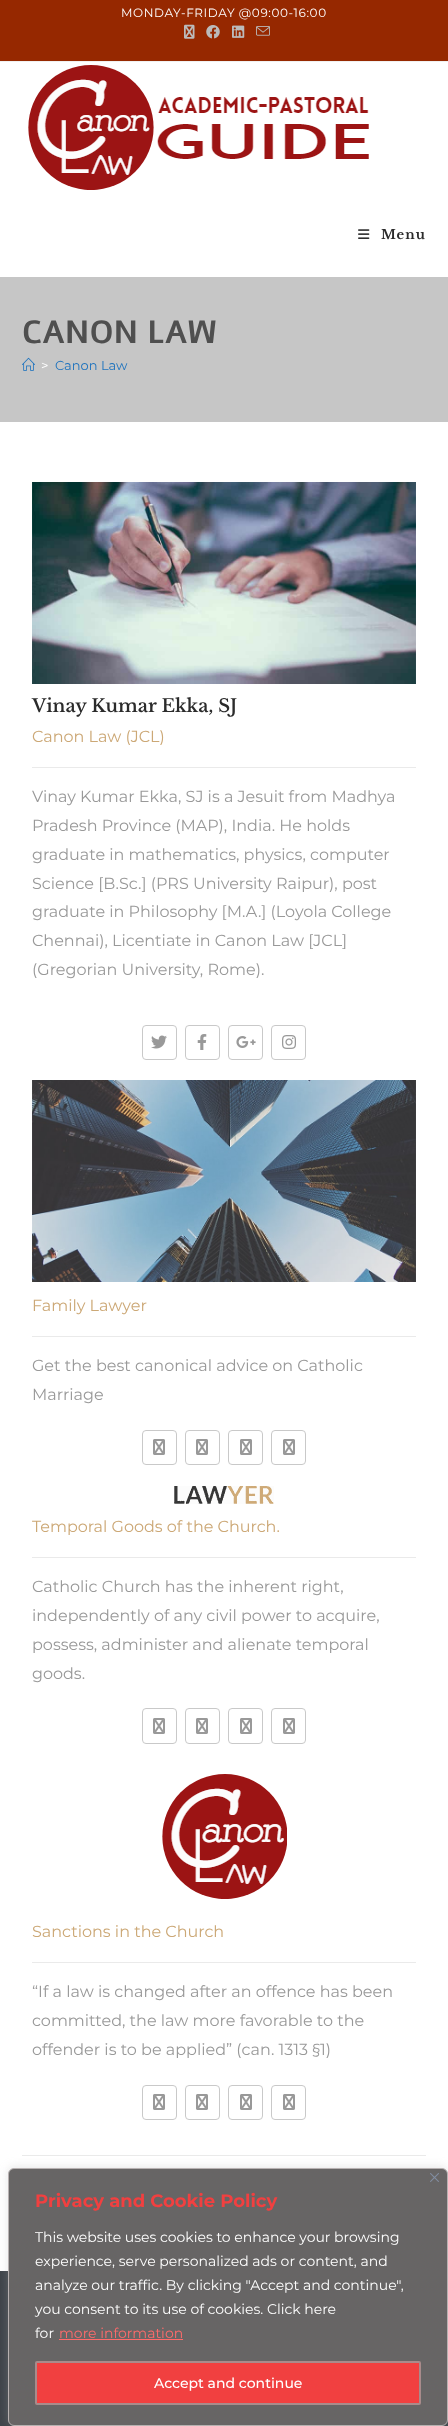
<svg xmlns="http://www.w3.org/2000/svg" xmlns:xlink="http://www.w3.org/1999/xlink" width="448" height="2426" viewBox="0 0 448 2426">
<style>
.cls-1{font:12px Montserrat;letter-spacing:0.6px;fill:#ffffff}
.cls-2{font:bold 13px Libre Baskerville;letter-spacing:1px;fill:#2b2b2b}
.cls-3{font:bold 32px Alef;fill:#4f4f4f}
.cls-4{font:13px Montserrat;fill:#ffffff}
.cls-5{font:13px Montserrat;fill:#1e73be}
.cls-6{font:600 18px Libre Baskerville;fill:#2b2b2b}
.cls-7{font:16px Montserrat;fill:#cca876}
.cls-8{font:16px Montserrat;fill:#999999}
.cls-9{font:bold 18px Montserrat;fill:#f14040}
.cls-10{font:14px Montserrat;fill:#ffffff}
.cls-11{font:14px Montserrat;fill:#ff6b6b}
.cls-12{font:500 14px Montserrat;fill:#ffffff}
</style>
<rect width="100%" height="100%" fill="#ffffff"/>
<rect fill="#962800" x="0" y="0" width="448" height="61"/>
<rect fill="#f1f1f1" x="0" y="61" width="448" height="1"/>
<image xlink:href="image0.png" x="184" y="24" width="11" height="15"/>
<image xlink:href="image1.png" x="206" y="25" width="14" height="14"/>
<image xlink:href="image2.png" x="232" y="25" width="13" height="13"/>
<image xlink:href="image3.png" x="256" y="26" width="14" height="10"/>
<image xlink:href="image4.png" x="28" y="65" width="341" height="125"/>
<image xlink:href="image5.png" x="358" y="229" width="12" height="10"/>
<rect fill="#c6c6c6" x="0" y="277" width="448" height="145"/>
<image xlink:href="image6.png" x="22" y="357" width="13" height="14"/>
<image xlink:href="image7.png" x="32" y="482" width="384" height="202"/>
<rect fill="#eaeaea" x="32" y="767" width="384" height="1"/>
<rect fill="none" stroke="#c9c9c9" x="142.5" y="1025.5" width="34" height="34" rx="3.5"/>
<image xlink:href="image8.png" x="151" y="1035" width="16" height="14"/>
<rect fill="none" stroke="#c9c9c9" x="185.5" y="1025.5" width="34" height="34" rx="3.5"/>
<image xlink:href="image9.png" x="197" y="1034" width="10" height="16"/>
<rect fill="none" stroke="#c9c9c9" x="228.5" y="1025.5" width="34" height="34" rx="3.5"/>
<image xlink:href="image10.png" x="236" y="1036" width="20" height="12"/>
<rect fill="none" stroke="#c9c9c9" x="271.5" y="1025.5" width="34" height="34" rx="3.5"/>
<image xlink:href="image11.png" x="282" y="1035" width="14" height="14"/>
<image xlink:href="image12.png" x="32" y="1080" width="384" height="202"/>
<rect fill="#eaeaea" x="32" y="1336" width="384" height="1"/>
<rect fill="none" stroke="#c9c9c9" x="142.5" y="1430.5" width="34" height="34" rx="3.5"/>
<image xlink:href="image13.png" x="153" y="1439" width="12" height="16"/>
<rect fill="none" stroke="#c9c9c9" x="185.5" y="1430.5" width="34" height="34" rx="3.5"/>
<image xlink:href="image13.png" x="196" y="1439" width="12" height="16"/>
<rect fill="none" stroke="#c9c9c9" x="228.5" y="1430.5" width="34" height="34" rx="3.5"/>
<image xlink:href="image13.png" x="240" y="1439" width="12" height="16"/>
<rect fill="none" stroke="#c9c9c9" x="271.5" y="1430.5" width="34" height="34" rx="3.5"/>
<image xlink:href="image13.png" x="283" y="1439" width="12" height="16"/>
<image xlink:href="image14.png" x="174" y="1486" width="100" height="18"/>
<rect fill="#eaeaea" x="32" y="1557" width="384" height="1"/>
<rect fill="none" stroke="#c9c9c9" x="142.5" y="1708.5" width="34" height="35" rx="3.5"/>
<image xlink:href="image13.png" x="153" y="1718" width="12" height="16"/>
<rect fill="none" stroke="#c9c9c9" x="185.5" y="1708.5" width="34" height="35" rx="3.5"/>
<image xlink:href="image13.png" x="196" y="1718" width="12" height="16"/>
<rect fill="none" stroke="#c9c9c9" x="228.5" y="1708.5" width="34" height="35" rx="3.5"/>
<image xlink:href="image13.png" x="240" y="1718" width="12" height="16"/>
<rect fill="none" stroke="#c9c9c9" x="271.5" y="1708.5" width="34" height="35" rx="3.5"/>
<image xlink:href="image13.png" x="283" y="1718" width="12" height="16"/>
<image xlink:href="image15.png" x="162" y="1774" width="125" height="125"/>
<rect fill="#eaeaea" x="32" y="1962" width="384" height="1"/>
<rect fill="none" stroke="#c9c9c9" x="142.5" y="2085.5" width="34" height="34" rx="3.5"/>
<image xlink:href="image13.png" x="153" y="2094" width="12" height="16"/>
<rect fill="none" stroke="#c9c9c9" x="185.5" y="2085.5" width="34" height="34" rx="3.5"/>
<image xlink:href="image13.png" x="196" y="2094" width="12" height="16"/>
<rect fill="none" stroke="#c9c9c9" x="228.5" y="2085.5" width="34" height="34" rx="3.5"/>
<image xlink:href="image13.png" x="240" y="2094" width="12" height="16"/>
<rect fill="none" stroke="#c9c9c9" x="271.5" y="2085.5" width="34" height="34" rx="3.5"/>
<image xlink:href="image13.png" x="283" y="2094" width="12" height="16"/>
<rect fill="#eaeaea" x="22" y="2155" width="404" height="1"/>
<rect fill="#3f444a" x="0" y="2271" width="448" height="155"/>
<rect fill="#acabab" fill-opacity="0.3" filter="blur(5px)" x="8" y="2167" width="440" height="258" rx="6"/>
<rect fill="#676565" stroke="#b7b1b1" x="8.5" y="2168.5" width="439" height="257" rx="5.5"/>
<image xlink:href="image16.png" x="430" y="2173" width="9" height="9"/>
<rect fill="#ff6b6b" x="59" y="2339" width="124" height="1"/>
<rect fill="#f14040" stroke="#a98b8b" stroke-width="2" x="36" y="2362" width="384" height="42" rx="1"/>
<text class="cls-1" x="121" y="17">MONDAY-FRIDAY @09:00-16:00</text>
<text class="cls-2" x="381" y="239">Menu</text>
<text class="cls-3" x="22" y="343">CANON LAW</text>
<text class="cls-4" x="41" y="370">&gt;</text>
<text class="cls-5" x="55" y="370">Canon Law</text>
<text class="cls-6" x="32" y="712">Vinay Kumar Ekka, SJ</text>
<text class="cls-7" x="32" y="742">Canon Law (JCL)</text>
<text class="cls-8"><tspan x="32" y="802">Vinay Kumar Ekka, SJ is a Jesuit from Madhya</tspan><tspan x="32" y="831">Pradesh Province (MAP), India. He holds</tspan><tspan x="32" y="860">graduate in mathematics, physics, computer</tspan><tspan x="32" y="889">Science [B.Sc.] (PRS University Raipur), post</tspan><tspan x="32" y="917">graduate in Philosophy [M.A.] (Loyola College</tspan><tspan x="32" y="946">Chennai), Licentiate in Canon Law [JCL]</tspan><tspan x="32" y="975">(Gregorian University, Rome).</tspan></text>
<text class="cls-7" x="32" y="1311">Family Lawyer</text>
<text class="cls-8"><tspan x="32" y="1371">Get the best canonical advice on Catholic</tspan><tspan x="32" y="1400">Marriage</tspan></text>
<text class="cls-7" x="32" y="1532">Temporal Goods of the Church.</text>
<text class="cls-8"><tspan x="32" y="1592">Catholic Church has the inherent right,</tspan><tspan x="32" y="1621">independently of any civil power to acquire,</tspan><tspan x="32" y="1650">possess, administer and alienate temporal</tspan><tspan x="32" y="1679">goods.</tspan></text>
<text class="cls-7" x="32" y="1937">Sanctions in the Church</text>
<text class="cls-8"><tspan x="32" y="1997">“If a law is changed after an offence has been</tspan><tspan x="32" y="2026">committed, the law more favorable to the</tspan><tspan x="32" y="2055">offender is to be applied” (can. 1313 §1)</tspan></text>
<text class="cls-9" x="35" y="2207">Privacy and Cookie Policy</text>
<text class="cls-10"><tspan x="35" y="2242">This website uses cookies to enhance your browsing</tspan><tspan x="35" y="2266">experience, serve personalized ads or content, and</tspan><tspan x="35" y="2290">analyze our traffic. By clicking "Accept and continue",</tspan><tspan x="35" y="2314">you consent to its use of cookies. Click here</tspan><tspan x="35" y="2338">for</tspan></text>
<text class="cls-11" x="59" y="2338">more information</text>
<text class="cls-12" x="154" y="2388">Accept and continue</text>
</svg>
